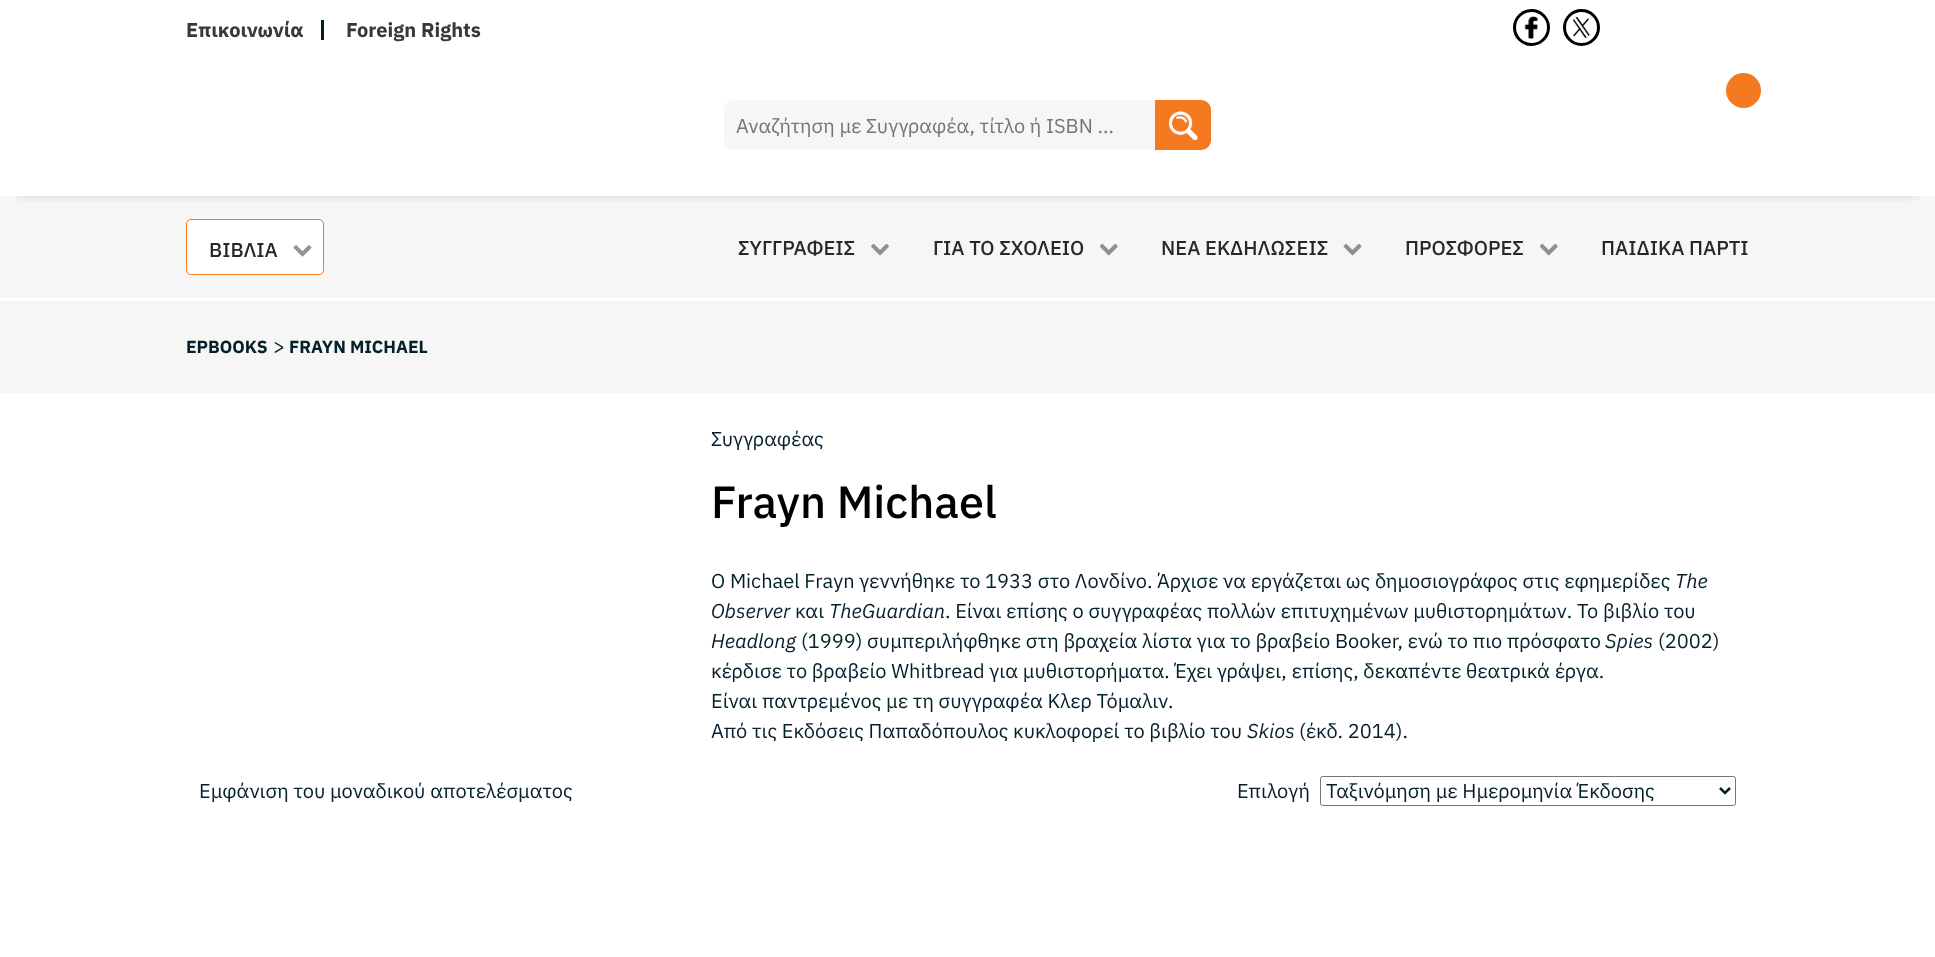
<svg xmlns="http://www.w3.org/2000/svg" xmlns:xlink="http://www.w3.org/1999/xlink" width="1935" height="957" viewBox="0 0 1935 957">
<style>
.cls-1{font:bold 20px IBM Plex Sans;fill:#383838}
.cls-2{font:20px IBM Plex Sans;fill:#757575}
.cls-3{font:500 20px IBM Plex Sans;fill:#282828}
.cls-4{font:bold 17.5px IBM Plex Sans;fill:#04202a}
.cls-5{font:20px IBM Plex Sans;fill:#04202a}
.cls-6{font:500 45px IBM Plex Sans;fill:#000000}
.cls-7{font:italic 20px IBM Plex Sans;fill:#04202a}
</style>
<defs>
<clipPath id="clip1"><rect x="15" y="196" width="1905" height="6"/></clipPath>
</defs>
<rect width="100%" height="100%" fill="#ffffff"/>
<rect fill="#04202a" x="321" y="20" width="3" height="20"/>
<circle fill="none" stroke="#000000" stroke-width="3" cx="1531.5" cy="27.5" r="17"/>
<image xlink:href="image0.png" x="1524" y="16" width="14" height="23"/>
<circle fill="none" stroke="#000000" stroke-width="3" cx="1581.5" cy="27.5" r="17"/>
<image xlink:href="image1.png" x="1573" y="17" width="17" height="21"/>
<rect fill="#f6f6f6" x="0" y="196" width="1935" height="102"/>
<g clip-path="url(#clip1)">
<rect fill="#000000" filter="blur(9px)" x="20" y="81" width="1895" height="103"/>
</g>
<circle fill="#f57921" cx="1743.5" cy="90.5" r="17.5"/>
<path fill="#f6f6f6" d="M734 100H1156V150H734C728.5 150 724 145.5 724 140V110C724 104.5 728.5 100 734 100Z"/>
<path fill="#f57921" d="M1155 100H1201C1206.5 100 1211 104.5 1211 110V140C1211 145.5 1206.5 150 1201 150H1155Z"/>
<image xlink:href="image2.png" x="1169" y="111" width="29" height="30"/>
<rect fill="#ffffff" stroke="#f57921" x="186.5" y="219.5" width="137" height="55" rx="4.5"/>
<image xlink:href="image3.png" x="293" y="245" width="19" height="12"/>
<image xlink:href="image4.png" x="871" y="243" width="18" height="13"/>
<image xlink:href="image5.png" x="1099" y="243" width="19" height="13"/>
<image xlink:href="image6.png" x="1343" y="243" width="19" height="13"/>
<image xlink:href="image5.png" x="1539" y="243" width="19" height="13"/>
<rect fill="#f6f6f6" x="0" y="301" width="1935" height="92"/>
<rect fill="none" stroke="#767676" x="1320.5" y="776.5" width="415" height="29" rx="2"/>
<path fill="none" stroke="#04202a" stroke-width="2.5" d="M1720 788L1725 793L1730 788"/>
<text class="cls-1" x="186" y="37">Επικοινωνία</text>
<text class="cls-1" x="346" y="37">Foreign Rights</text>
<text class="cls-2" x="736" y="133">Αναζήτηση με Συγγραφέα, τίτλο ή ISBN ...</text>
<text class="cls-3" x="209" y="257">ΒΙΒΛΙΑ</text>
<text class="cls-3" x="738" y="255">ΣΥΓΓΡΑΦΕΙΣ</text>
<text class="cls-3" x="933" y="255">ΓΙΑ ΤΟ ΣΧΟΛΕΙΟ</text>
<text class="cls-3" x="1161" y="255">ΝΕΑ ΕΚΔΗΛΩΣΕΙΣ</text>
<text class="cls-3" x="1405" y="255">ΠΡΟΣΦΟΡΕΣ</text>
<text class="cls-3" x="1601" y="255">ΠΑΙΔΙΚΑ ΠΑΡΤΙ</text>
<text class="cls-4" x="186" y="353">EPBOOKS</text>
<text class="cls-5" x="273" y="353">&gt;</text>
<text class="cls-4" x="289" y="353">FRAYN MICHAEL</text>
<text class="cls-5" x="711" y="446">Συγγραφέας</text>
<text class="cls-6" x="711" y="518">Frayn Michael</text>
<text class="cls-5" x="711" y="588">O Michael Frayn γεννήθηκε το 1933 στο Λονδίνο. Άρχισε να εργάζεται ως δημοσιογράφος στις εφημερίδες</text>
<text class="cls-7" x="1675" y="588">The</text>
<text class="cls-7" x="711" y="618">Οbserver</text>
<text class="cls-5" x="795" y="618">και</text>
<text class="cls-7" x="829" y="618">The</text>
<text class="cls-7" x="862" y="618">Guardian</text>
<text class="cls-5" x="945" y="618">. Είναι επίσης ο συγγραφέας πολλών επιτυχημένων μυθιστορημάτων. Το βιβλίο του</text>
<text class="cls-7" x="711" y="648">Headlong</text>
<text class="cls-5" x="801" y="648">(1999) συμπεριλήφθηκε στη βραχεία λίστα για το βραβείο Booker, ενώ το πιο πρόσφατο</text>
<text class="cls-7" x="1605" y="648">Spies</text>
<text class="cls-5" x="1658" y="648">(2002)</text>
<text class="cls-5"><tspan x="711" y="678">κέρδισε το βραβείο Whitbread για μυθιστορήματα. Έχει γράψει, επίσης, δεκαπέντε θεατρικά έργα.</tspan><tspan x="711" y="708">Είναι παντρεμένος με τη συγγραφέα Κλερ Τόμαλιν.</tspan><tspan x="711" y="738">Από τις Εκδόσεις Παπαδόπουλος κυκλοφορεί το βιβλίο του</tspan></text>
<text class="cls-7" x="1247" y="738">Skios</text>
<text class="cls-5" x="1299" y="738">(έκδ. 2014).</text>
<text class="cls-5" x="199" y="798">Εμφάνιση του μοναδικού αποτελέσματος</text>
<text class="cls-5" x="1237" y="798">Επιλογή</text>
<text class="cls-5" x="1326" y="798">Ταξινόμηση με Ημερομηνία Έκδοσης</text>
</svg>
